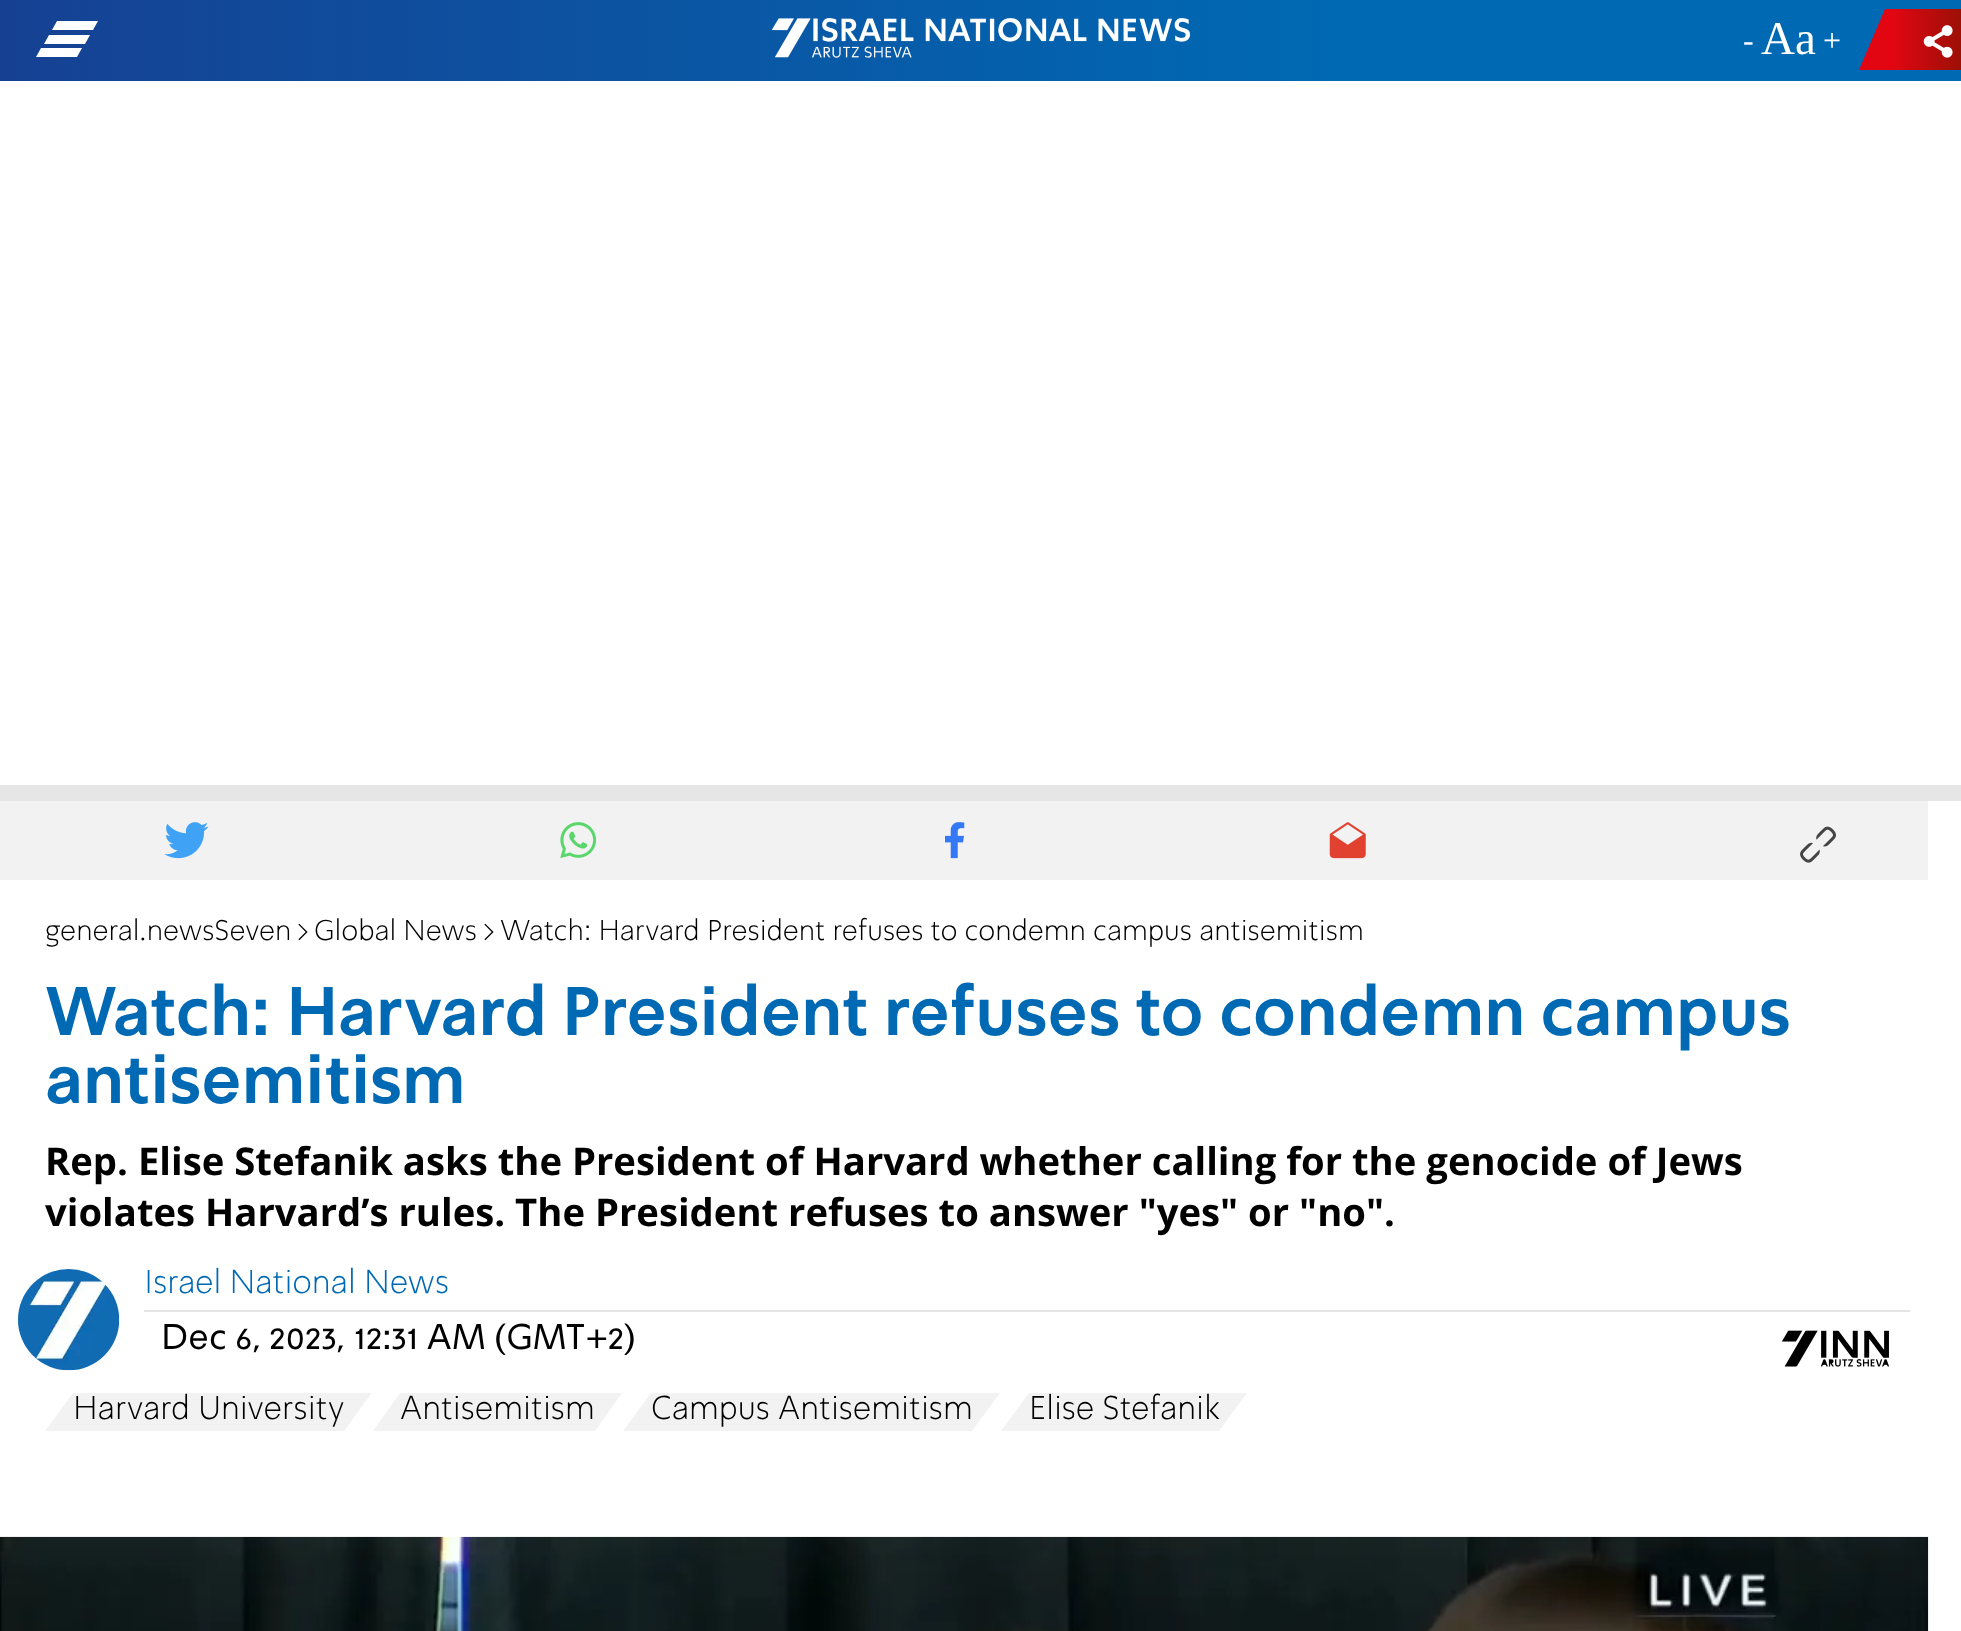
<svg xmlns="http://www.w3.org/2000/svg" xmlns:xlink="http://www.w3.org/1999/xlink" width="1961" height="1631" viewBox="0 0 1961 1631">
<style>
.cls-1{font:32px Liberation Serif;fill:#ffffff}
.cls-2{font:47px Liberation Serif;fill:#ffffff}
.cls-3{font:300 29.25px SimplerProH;fill:#000000}
.cls-4{font:bold 67.5px SimplerProH;fill:#0069b3}
.cls-5{font:bold 38.25px Open Sans;fill:#000000}
.cls-6{font:300 33.75px SimplerProH;fill:#0069b3}
.cls-7{font:36px SimplerProH;fill:#000000}
.cls-8{font:300 33.75px SimplerProH;fill:#000000}
</style>
<defs>
<linearGradient id="g1" gradientUnits="userSpaceOnUse" x1="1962" y1="40" x2="0" y2="41"><stop offset="0.32" stop-color="#0069b3"/><stop offset="1" stop-color="#164193"/></linearGradient>
<linearGradient id="g2" gradientUnits="userSpaceOnUse" x1="1859" y1="39" x2="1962" y2="39"><stop offset="0.32" stop-color="#e20613"/><stop offset="1" stop-color="#9b1006"/></linearGradient>
</defs>
<rect width="100%" height="100%" fill="#ffffff"/>
<rect fill="url(#g1)" x="0" y="0" width="1961" height="81"/>
<path fill="#ffffff" d="M49 35L44 44H85L90 35ZM57 21L52 30H93L98 21ZM77 57L82 48H41L36 57Z"/>
<image xlink:href="image0.png" x="771" y="18" width="419" height="40"/>
<path fill="url(#g2)" d="M1885 9L1859 70H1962V9Z"/>
<image xlink:href="image1.png" x="1923" y="25" width="30" height="33"/>
<rect fill="#e6e6e6" x="0" y="785" width="1961" height="16"/>
<rect fill="#f2f2f2" x="0" y="801" width="1928" height="79"/>
<image xlink:href="image2.png" x="164" y="822" width="45" height="37"/>
<image xlink:href="image3.png" x="560" y="822" width="37" height="37"/>
<image xlink:href="image4.png" x="945" y="822" width="20" height="37"/>
<image xlink:href="image5.png" x="1329" y="822" width="37" height="37"/>
<image xlink:href="image6.png" x="1800" y="826" width="36" height="37"/>
<image xlink:href="image7.png" x="18" y="1269" width="102" height="102"/>
<rect fill="#e4e4e4" x="144" y="1310" width="1766" height="2"/>
<image xlink:href="image8.png" x="1782" y="1330" width="108" height="37"/>
<path fill="#f2f2f2" d="M45 1431L73 1393H371V1394L344 1431Z"/>
<path fill="#f2f2f2" d="M373 1431L400 1393H622L595 1431Z"/>
<path fill="#f2f2f2" d="M623 1431L651 1393H1000L972 1431Z"/>
<path fill="#f2f2f2" d="M1001 1431L1029 1393H1247L1219 1431Z"/>
<image xlink:href="image9.png" x="0" y="1536" width="1929" height="95"/>
<text class="cls-1" x="1743" y="51">-</text>
<text class="cls-2" x="1761" y="54">Aa</text>
<text class="cls-1" x="1823" y="51">+</text>
<text class="cls-3" x="45" y="940">general.newsSeven</text>
<text class="cls-3" x="296" y="940">&gt;</text>
<text class="cls-3" x="314" y="940">Global News</text>
<text class="cls-3" x="482" y="940">&gt;</text>
<text class="cls-3" x="500" y="940">Watch: Harvard President refuses to condemn campus antisemitism</text>
<text class="cls-4"><tspan x="45" y="1035">Watch: Harvard President refuses to condemn campus</tspan><tspan x="45" y="1103">antisemitism</tspan></text>
<text class="cls-5"><tspan x="45" y="1175">Rep. Elise Stefanik asks the President of Harvard whether calling for the genocide of Jews</tspan><tspan x="45" y="1226">violates Harvard’s rules. The President refuses to answer "yes" or "no".</tspan></text>
<text class="cls-6" x="144" y="1293">Israel National News</text>
<text class="cls-7" x="161" y="1349">Dec 6, 2023, 12:31 AM (GMT+2)</text>
<text class="cls-8" x="73" y="1419">Harvard University</text>
<text class="cls-8" x="400" y="1419">Antisemitism</text>
<text class="cls-8" x="651" y="1419">Campus Antisemitism</text>
<text class="cls-8" x="1029" y="1419">Elise Stefanik</text>
</svg>
